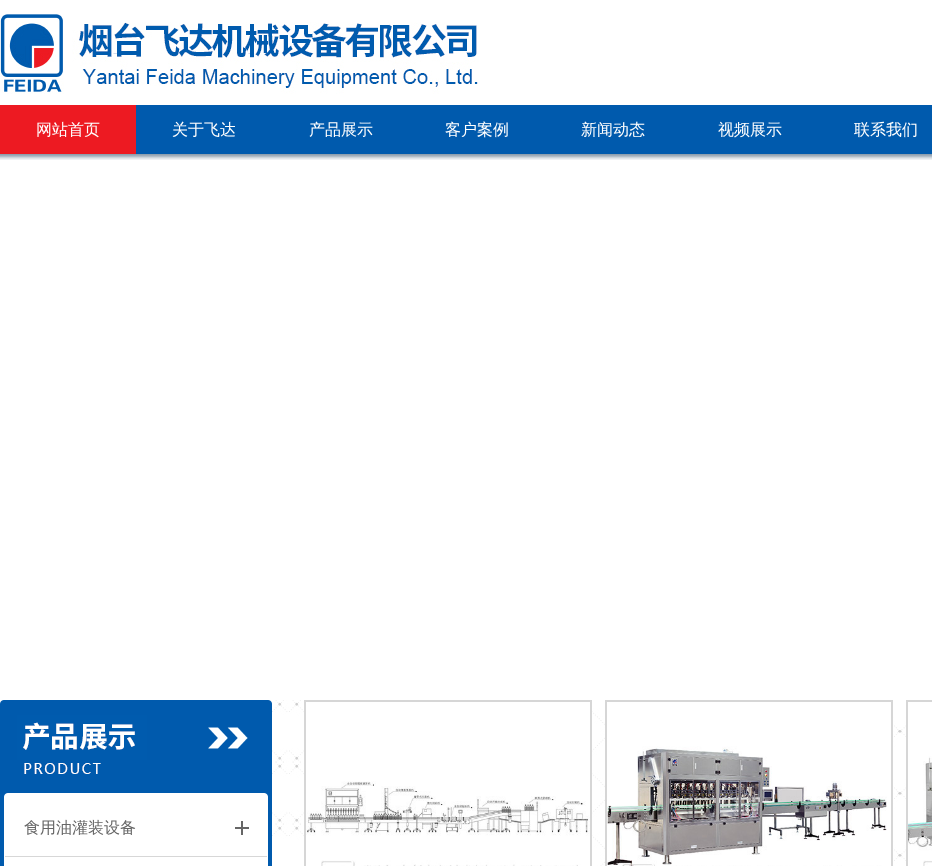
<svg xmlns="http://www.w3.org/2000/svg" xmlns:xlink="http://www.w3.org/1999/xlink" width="932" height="866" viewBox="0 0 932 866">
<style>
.cls-1{font:500 16px WenQuanYi Zen Hei;fill:#ffffff}
.cls-2{font:500 16px WenQuanYi Zen Hei;fill:#666666}
</style>
<rect width="100%" height="100%" fill="#ffffff"/>
<image xlink:href="image0.png" x="0" y="14" width="479" height="80"/>
<image xlink:href="image1.png" x="0" y="105" width="932" height="55"/>
<rect fill="#ed1a22" x="0" y="105" width="136" height="49"/>
<image xlink:href="image2.png" x="1" y="700" width="905" height="166"/>
<image xlink:href="image3.png" x="0" y="700" width="272" height="166"/>
<image xlink:href="image4.png" x="235" y="821" width="14" height="14"/>
<rect fill="#d7d7d7" x="5" y="856" width="262" height="1"/>
<rect fill="none" stroke="#d6d6d6" stroke-width="2" x="305" y="701" width="286" height="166"/>
<image xlink:href="image5.png" x="306" y="702" width="284" height="164"/>
<rect fill="none" stroke="#d6d6d6" stroke-width="2" x="606" y="701" width="286" height="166"/>
<image xlink:href="image6.png" x="607" y="702" width="284" height="164"/>
<rect fill="none" stroke="#d6d6d6" stroke-width="2" x="907" y="701" width="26" height="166"/>
<image xlink:href="image7.png" x="908" y="702" width="24" height="164"/>
<text class="cls-1" x="36" y="135">网站首页</text>
<text class="cls-1" x="172" y="135">关于飞达</text>
<text class="cls-1" x="309" y="135">产品展示</text>
<text class="cls-1" x="445" y="135">客户案例</text>
<text class="cls-1" x="581" y="135">新闻动态</text>
<text class="cls-1" x="718" y="135">视频展示</text>
<text class="cls-1" x="854" y="135">联系我们</text>
<text class="cls-2" x="24" y="833">食用油灌装设备</text>
</svg>
